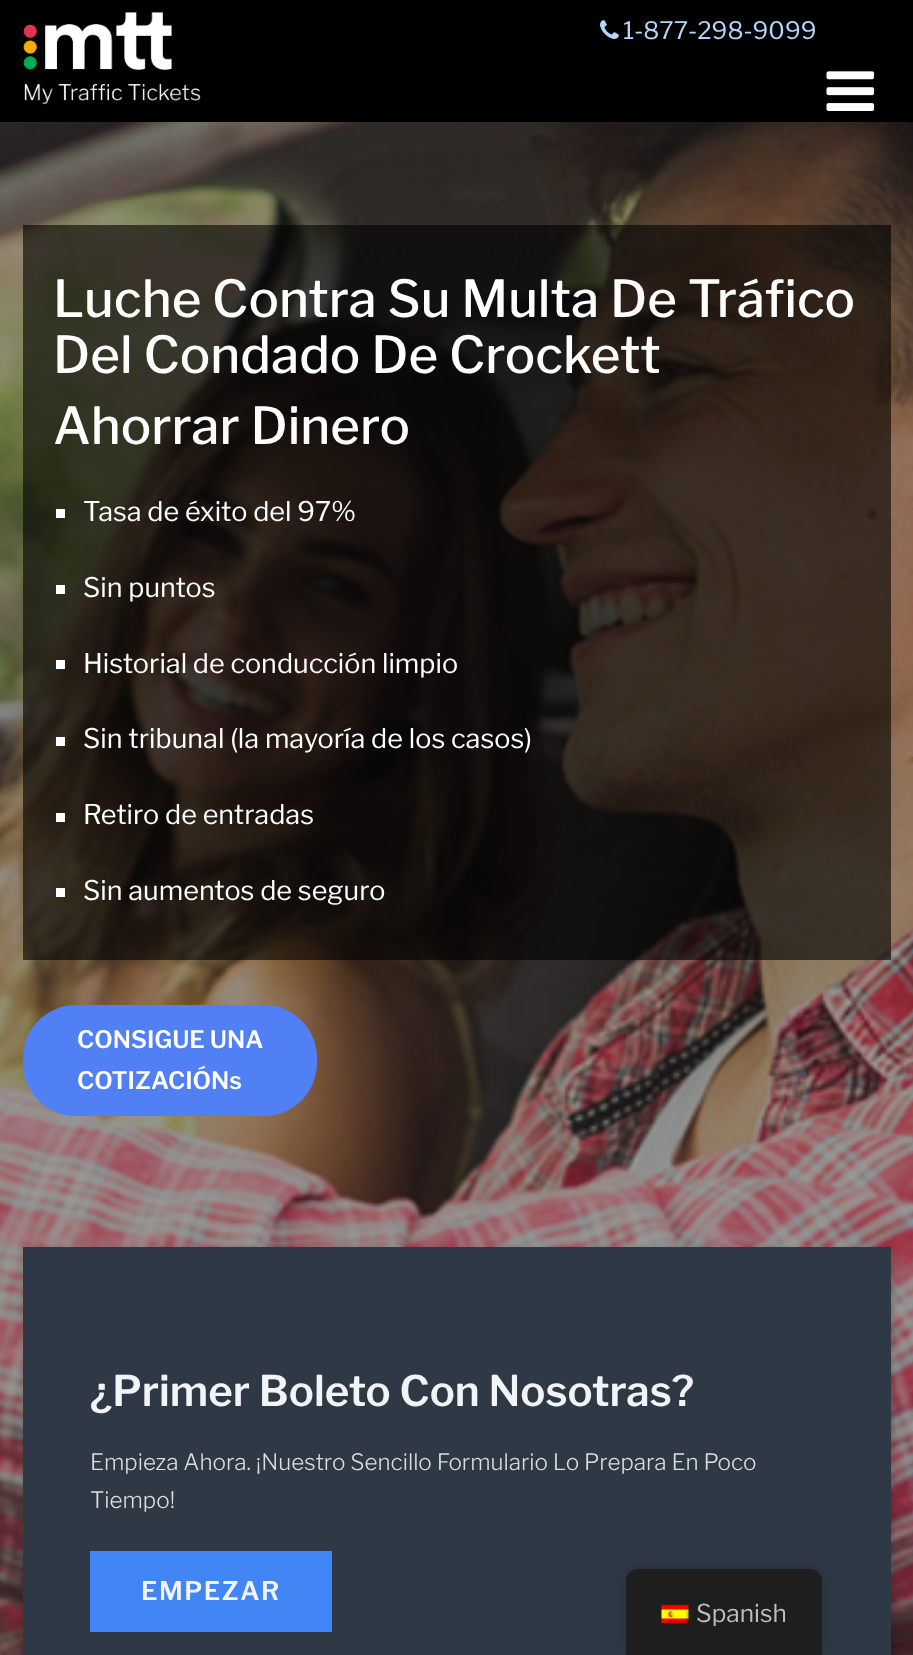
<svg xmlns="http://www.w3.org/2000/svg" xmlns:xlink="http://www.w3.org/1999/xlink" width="913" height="1655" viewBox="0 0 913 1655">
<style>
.cls-1{font:24px Libre Franklin;fill:#b4d6fb}
.cls-2{font:500 51px Libre Franklin;fill:#ffffff}
.cls-3{font:27px Libre Franklin;fill:#ffffff}
.cls-4{font:600 24px Libre Franklin;fill:#ffffff}
.cls-5{font:600 42px Libre Franklin;fill:#f2f4f8}
.cls-6{font:300 22.5px Libre Franklin;fill:#dddddd}
.cls-7{font:600 25.5px Libre Franklin;letter-spacing:1.5px;fill:#f2f4f8}
.cls-8{font:24.5px Libre Franklin;fill:#bdbdbd}
</style>
<rect width="100%" height="100%" fill="#ffffff"/>
<rect fill="#000000" x="0" y="0" width="913" height="122"/>
<image xlink:href="image0.png" x="23" y="12" width="178" height="93"/>
<image xlink:href="image1.png" x="600" y="20" width="19" height="19"/>
<image xlink:href="image2.png" x="826" y="71" width="49" height="40"/>
<image xlink:href="image3.png" x="0" y="122" width="913" height="1533"/>
<rect fill="#000000" fill-opacity="0.6" x="23" y="225" width="868" height="735"/>
<rect fill="#ffffff" x="56" y="509" width="9" height="9"/>
<rect fill="#ffffff" x="56" y="585" width="9" height="9"/>
<rect fill="#ffffff" x="56" y="660" width="9" height="9"/>
<rect fill="#ffffff" x="56" y="737" width="9" height="9"/>
<rect fill="#ffffff" x="56" y="813" width="9" height="9"/>
<rect fill="#ffffff" x="56" y="888" width="9" height="9"/>
<rect fill="#5080f4" x="23" y="1005" width="294" height="111" rx="53"/>
<rect fill="#000000" fill-opacity="0.2" filter="blur(4px)" x="24" y="1250" width="869" height="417"/>
<rect fill="#2f3945" x="23" y="1247" width="868" height="408"/>
<rect fill="#4285f4" x="90" y="1551" width="242" height="81"/>
<rect fill="#000000" fill-opacity="0.25" filter="blur(6px)" x="626" y="1569" width="196" height="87" rx="12"/>
<path fill="#1e1e1e" d="M638 1569H810C816.5 1569 822 1574.5 822 1581V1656H626V1581C626 1574.5 631.5 1569 638 1569Z"/>
<image xlink:href="image4.png" x="661" y="1604" width="28" height="19"/>
<text class="cls-1" x="623" y="39">1-877-298-9099</text>
<text class="cls-2"><tspan x="53" y="317">Luche Contra Su Multa De Tráfico</tspan><tspan x="53" y="373">Del Condado De Crockett</tspan><tspan x="53" y="444">Ahorrar Dinero</tspan></text>
<text class="cls-3" x="83" y="521">Tasa de éxito del 97%</text>
<text class="cls-3" x="83" y="597">Sin puntos</text>
<text class="cls-3" x="83" y="673">Historial de conducción limpio</text>
<text class="cls-3" x="83" y="748">Sin tribunal (la mayoría de los casos)</text>
<text class="cls-3" x="83" y="824">Retiro de entradas</text>
<text class="cls-3" x="83" y="900">Sin aumentos de seguro</text>
<text class="cls-4"><tspan x="77" y="1048">CONSIGUE UNA</tspan><tspan x="77" y="1089">COTIZACIÓNs</tspan></text>
<text class="cls-5" x="90" y="1406">¿Primer Boleto Con Nosotras?</text>
<text class="cls-6"><tspan x="90" y="1470">Empieza Ahora. ¡Nuestro Sencillo Formulario Lo Prepara En Poco</tspan><tspan x="90" y="1508">Tiempo!</tspan></text>
<text class="cls-7" x="141" y="1600">EMPEZAR</text>
<text class="cls-8" x="696" y="1622">Spanish</text>
</svg>
